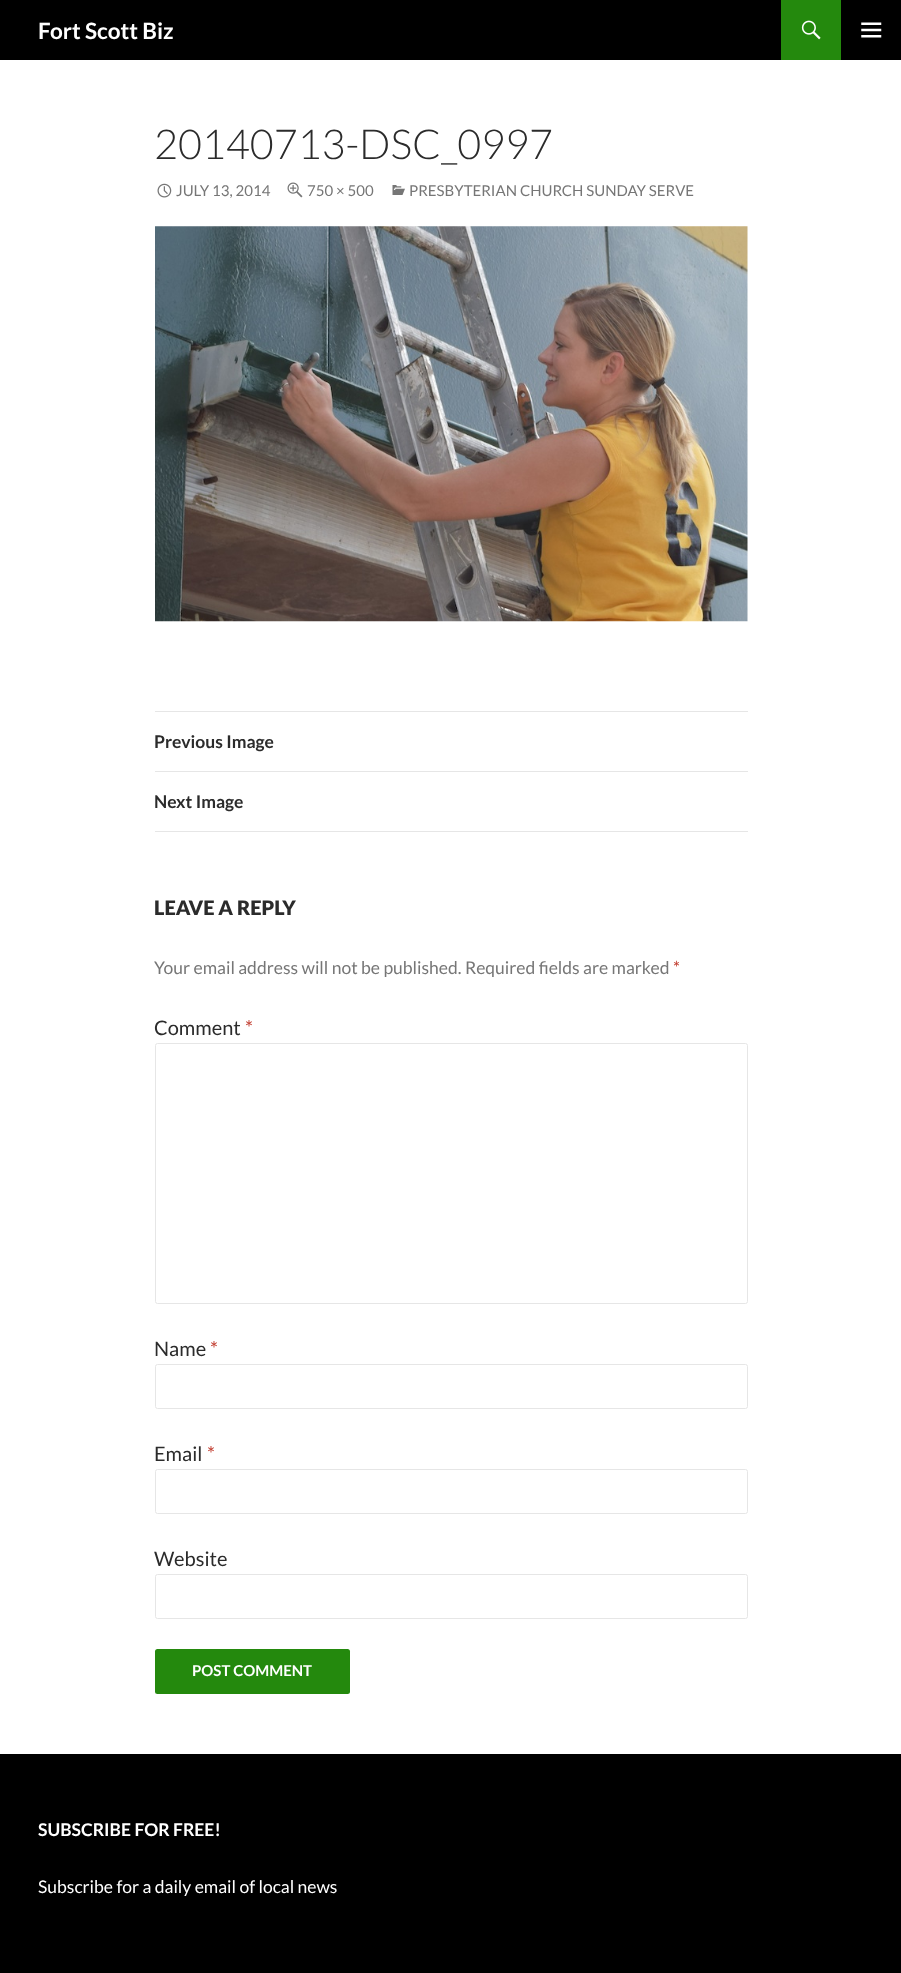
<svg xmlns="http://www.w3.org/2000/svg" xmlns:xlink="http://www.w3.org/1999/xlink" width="901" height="1973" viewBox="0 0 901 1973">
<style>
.cls-1{font:bold 22.5px Lato;fill:#ffffff}
.cls-2{font:300 41.25px Lato;fill:#2b2b2b}
.cls-3{font:15px Lato;fill:#767676}
.cls-4{font:bold 17.5px Lato;fill:#2b2b2b}
.cls-5{font:900 20px Lato;fill:#2b2b2b}
.cls-6{font:17.5px Lato;fill:#767676}
.cls-7{font:17.5px Lato;fill:#c0392b}
.cls-8{font:20px Lato;fill:#2b2b2b}
.cls-9{font:20px Lato;fill:#c0392b}
.cls-10{font:bold 15px Lato;fill:#ffffff}
.cls-11{font:bold 17.5px Lato;fill:#ffffff}
.cls-12{font:17.5px Lato;fill:#ffffff}
</style>
<rect width="100%" height="100%" fill="#ffffff"/>
<rect fill="#000000" x="0" y="0" width="901" height="60"/>
<rect fill="#24890d" x="781" y="0" width="60" height="60"/>
<image xlink:href="image0.png" x="801" y="20" width="20" height="20"/>
<image xlink:href="image1.png" x="861" y="22" width="21" height="16"/>
<image xlink:href="image2.png" x="157" y="183" width="15" height="15"/>
<image xlink:href="image3.png" x="287" y="182" width="16" height="16"/>
<image xlink:href="image4.png" x="392" y="185" width="13" height="10"/>
<image xlink:href="image5.png" x="155" y="226" width="593" height="396"/>
<rect fill="#e6e6e6" x="155" y="711" width="593" height="1"/>
<rect fill="#e6e6e6" x="155" y="771" width="593" height="1"/>
<rect fill="#e6e6e6" x="155" y="831" width="593" height="1"/>
<rect fill="none" stroke="#e6e6e6" x="155.5" y="1043.5" width="592" height="260" rx="2"/>
<rect fill="none" stroke="#e6e6e6" x="155.5" y="1364.5" width="592" height="44" rx="2"/>
<rect fill="none" stroke="#e6e6e6" x="155.5" y="1469.5" width="592" height="44" rx="2"/>
<rect fill="none" stroke="#e6e6e6" x="155.5" y="1574.5" width="592" height="44" rx="2"/>
<rect fill="#24890d" x="155" y="1649" width="195" height="45" rx="2.5"/>
<rect fill="#000000" x="0" y="1754" width="901" height="219"/>
<text class="cls-1" x="38" y="39">Fort Scott Biz</text>
<text class="cls-2" x="154" y="159">20140713-DSC_0997</text>
<text class="cls-3" x="176" y="196">JULY 13, 2014</text>
<text class="cls-3" x="307" y="196">750 × 500</text>
<text class="cls-3" x="409" y="196">PRESBYTERIAN CHURCH SUNDAY SERVE</text>
<text class="cls-4" x="154" y="748">Previous Image</text>
<text class="cls-4" x="154" y="808">Next Image</text>
<text class="cls-5" x="154" y="915">LEAVE A REPLY</text>
<text class="cls-6" x="154" y="974">Your email address will not be published. Required fields are marked</text>
<text class="cls-7" x="673" y="974">*</text>
<text class="cls-8" x="154" y="1035">Comment</text>
<text class="cls-9" x="245" y="1035">*</text>
<text class="cls-8" x="154" y="1356">Name</text>
<text class="cls-9" x="210" y="1356">*</text>
<text class="cls-8" x="154" y="1461">Email</text>
<text class="cls-9" x="207" y="1461">*</text>
<text class="cls-8" x="154" y="1566">Website</text>
<text class="cls-10" x="192" y="1676">POST COMMENT</text>
<text class="cls-11" x="38" y="1836">SUBSCRIBE FOR FREE!</text>
<text class="cls-12" x="38" y="1893">Subscribe for a daily email of local news</text>
</svg>
